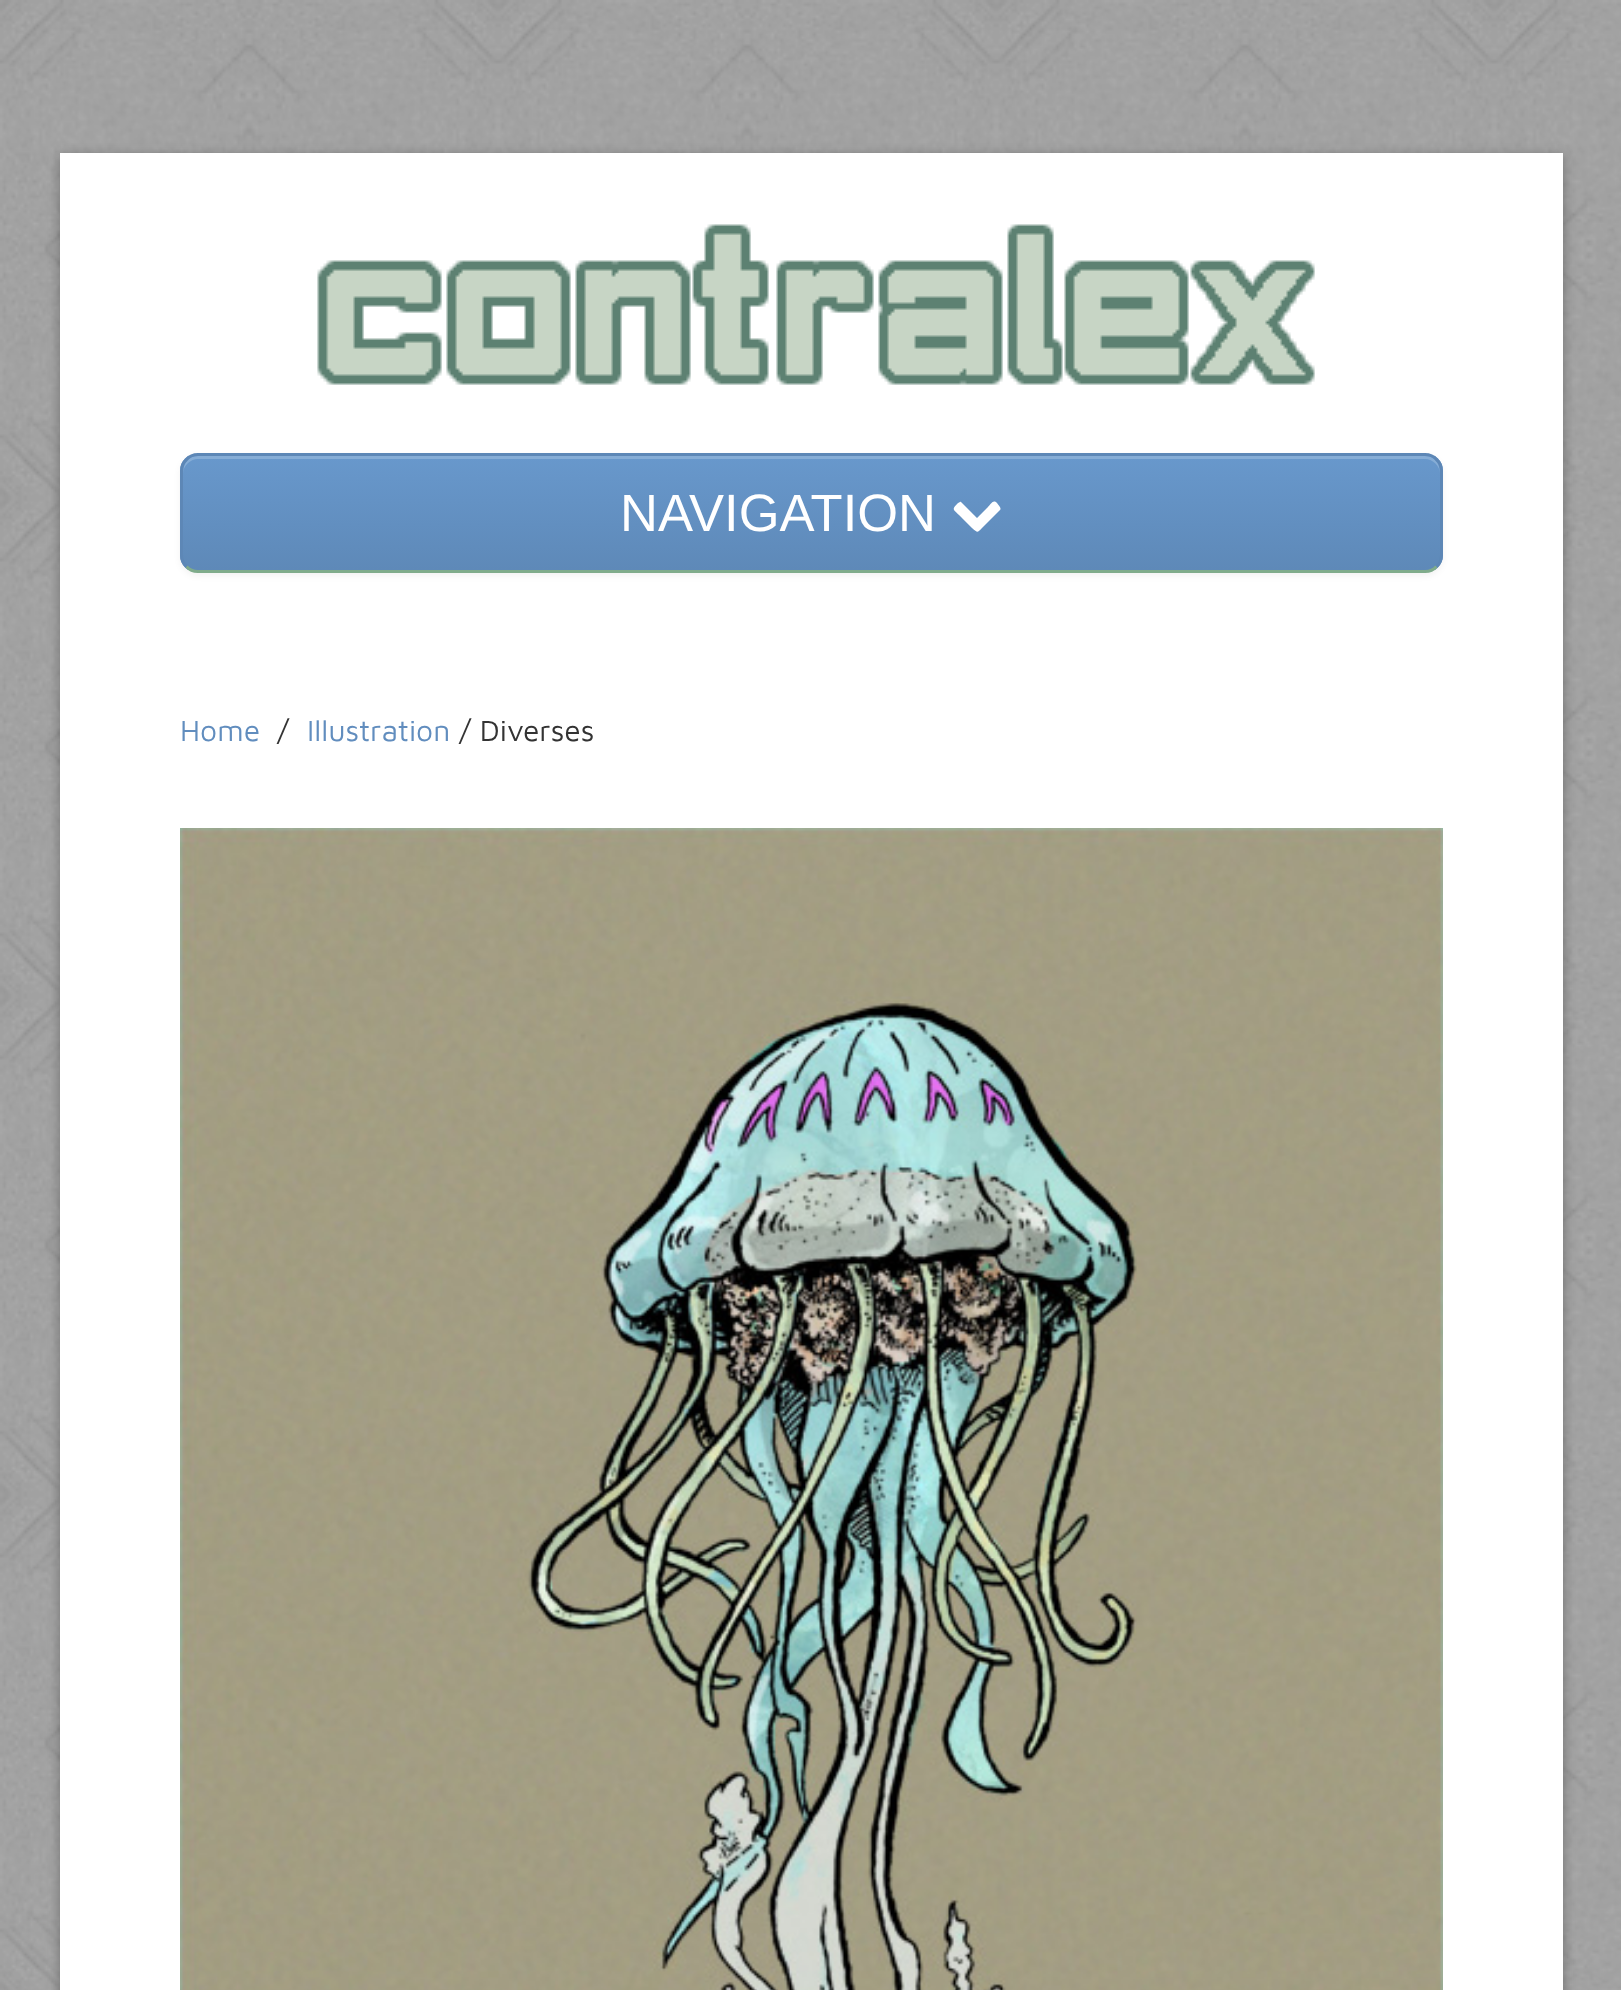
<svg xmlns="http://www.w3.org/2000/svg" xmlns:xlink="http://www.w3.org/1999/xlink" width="1621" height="1990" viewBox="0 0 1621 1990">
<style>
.cls-1{font:52.5px Liberation Sans;fill:#ffffff}
.cls-2{font:30px Maven Pro;fill:#618dbe}
.cls-3{font:30px Maven Pro;fill:#333333}
</style>
<defs>
<clipPath id="clip1"><rect x="180" y="453" width="1263" height="120" rx="18"/></clipPath>
<linearGradient id="g1" gradientUnits="userSpaceOnUse" x1="812" y1="456" x2="812" y2="570"><stop offset="0" stop-color="#6898cc"/><stop offset="1" stop-color="#5e89b8"/></linearGradient>
</defs>
<rect width="100%" height="100%" fill="#ffffff"/>
<image xlink:href="image0.png" x="0" y="0" width="1621" height="1990"/>
<rect fill="#000000" fill-opacity="0.3" filter="blur(6px)" x="60" y="156" width="1503" height="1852"/>
<rect fill="#ffffff" x="60" y="153" width="1503" height="1837"/>
<image xlink:href="image1.png" x="317" y="224" width="998" height="161"/>
<rect fill="#000000" fill-opacity="0.05" filter="blur(3px)" x="180" y="456" width="1263" height="120" rx="18"/>
<g clip-path="url(#clip1)">
<rect fill="url(#g1)" x="180" y="456" width="1263" height="114"/>
</g>
<path fill="#86add6" d="M198 459H1425C1433 459 1440 466 1440 474C1440 465 1436 456 1425 456H198C187 456 183 465 183 474C183 466 190 459 198 459Z"/>
<path fill="none" stroke="#7fab8b" stroke-width="3" d="M1436.5 566.5C1433.5 570 1429.5 571.5 1425 571.5H198C193.5 571.5 189.5 570 186.5 566.5"/>
<path fill="none" stroke="#5d87b6" stroke-width="3" d="M186.5 566.5C183 563.5 181.5 559.5 181.5 555V471C181.5 466.5 183 462.5 186.5 459.5C189.5 456 193.5 454.5 198 454.5H1425C1429.5 454.5 1433.5 456 1436.5 459.5C1440 462.5 1441.5 466.5 1441.5 471V555C1441.5 559.5 1440 563.5 1436.5 566.5"/>
<path fill="#ffffff" d="M1000 510C1002 508 998 505 997 503C993 499 991 504 988 507L977 518L961 502C960 501 959 503 958 503C951 510 953 509 961 517L972 528C978 533 977 533 982 528Z"/>
<image xlink:href="image2.png" x="180" y="828" width="1263" height="1162"/>
<text class="cls-1" x="620" y="531">NAVIGATION</text>
<text class="cls-2" x="180" y="741">Home</text>
<text class="cls-3" x="277" y="741">/</text>
<text class="cls-2" x="307" y="741">Illustration</text>
<text class="cls-3" x="459" y="741">/ Diverses</text>
</svg>
